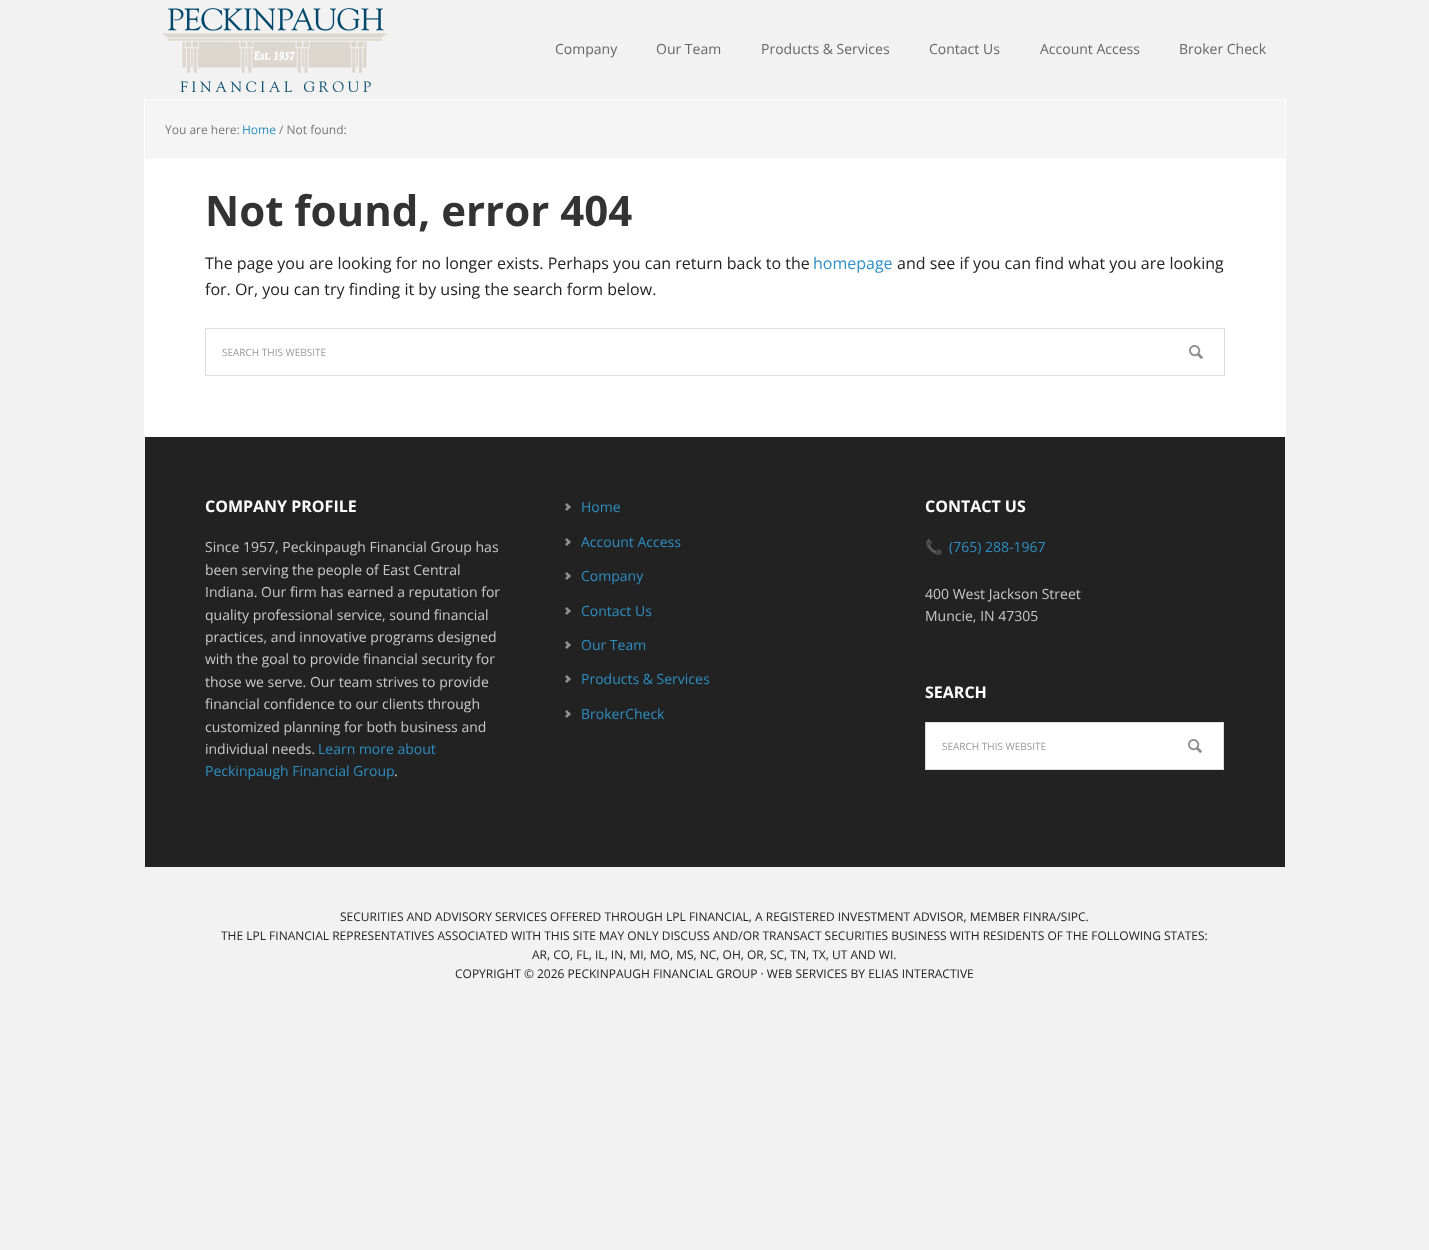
<svg xmlns="http://www.w3.org/2000/svg" xmlns:xlink="http://www.w3.org/1999/xlink" width="1429" height="1250" viewBox="0 0 1429 1250">
<style>
.cls-1{font:14px Open Sans;fill:#666666}
.cls-2{font:12px Open Sans;fill:#777777}
.cls-3{font:12px Open Sans;fill:#2d8fc3}
.cls-4{font:bold 42px Open Sans;fill:#333333}
.cls-5{font:16px Open Sans;fill:#222222}
.cls-6{font:16px Open Sans;fill:#2d8fc3}
.cls-7{font:10px Open Sans;fill:#999999}
.cls-8{font:bold 16px Open Sans;fill:#ffffff}
.cls-9{font:14px Open Sans;fill:#c8c8c8}
.cls-10{font:14px Open Sans;fill:#2d8fc3}
.cls-11{font:14px Noto Color Emoji;fill:#c8c8c8}
.cls-12{font:12px Open Sans;fill:#222222}
</style>
<rect width="100%" height="100%" fill="#f2f2f2"/>
<image xlink:href="image0.png" x="162" y="8" width="226" height="84"/>
<rect fill="none" stroke="#ffffff" x="144.5" y="99.5" width="1141" height="337"/>
<rect fill="#ffffff" x="145" y="159" width="1140" height="277"/>
<rect fill="#f5f5f5" x="145" y="100" width="1140" height="59"/>
<image xlink:href="image1.png" x="1189" y="345" width="14" height="14"/>
<rect fill="none" stroke="#dddddd" x="205.5" y="328.5" width="1019" height="47"/>
<rect fill="#222222" x="145" y="437" width="1140" height="430"/>
<image xlink:href="image2.png" x="565" y="503" width="6" height="8"/>
<image xlink:href="image2.png" x="565" y="538" width="6" height="8"/>
<image xlink:href="image2.png" x="565" y="572" width="6" height="8"/>
<image xlink:href="image2.png" x="565" y="607" width="6" height="8"/>
<image xlink:href="image2.png" x="565" y="641" width="6" height="8"/>
<image xlink:href="image2.png" x="565" y="675" width="6" height="8"/>
<image xlink:href="image2.png" x="565" y="710" width="6" height="8"/>
<rect fill="#ffffff" x="926" y="723" width="297" height="46"/>
<image xlink:href="image1.png" x="1188" y="739" width="14" height="14"/>
<rect fill="none" stroke="#dddddd" x="925.5" y="722.5" width="298" height="47"/>
<text class="cls-1" x="555" y="54">Company</text>
<text class="cls-1" x="656" y="54">Our Team</text>
<text class="cls-1" x="761" y="54">Products &amp; Services</text>
<text class="cls-1" x="929" y="54">Contact Us</text>
<text class="cls-1" x="1040" y="54">Account Access</text>
<text class="cls-1" x="1179" y="54">Broker Check</text>
<text class="cls-2" x="165" y="134">You are here:</text>
<text class="cls-3" x="242" y="134">Home</text>
<text class="cls-2" x="279" y="134">/ Not found:</text>
<text class="cls-4" x="205" y="226">Not found, error 404</text>
<text class="cls-5" x="205" y="269">The page you are looking for no longer exists. Perhaps you can return back to the</text>
<text class="cls-6" x="813" y="269">homepage</text>
<text class="cls-5" x="897" y="269">and see if you can find what you are looking</text>
<text class="cls-5" x="205" y="295">for. Or, you can try finding it by using the search form below.</text>
<text class="cls-7" x="222" y="356">SEARCH THIS WEBSITE</text>
<text class="cls-8" x="205" y="512">COMPANY PROFILE</text>
<text class="cls-9"><tspan x="205" y="552">Since 1957, Peckinpaugh Financial Group has</tspan><tspan x="205" y="575">been serving the people of East Central</tspan><tspan x="205" y="597">Indiana. Our firm has earned a reputation for</tspan><tspan x="205" y="620">quality professional service, sound financial</tspan><tspan x="205" y="642">practices, and innovative programs designed</tspan><tspan x="205" y="664">with the goal to provide financial security for</tspan><tspan x="205" y="687">those we serve. Our team strives to provide</tspan><tspan x="205" y="709">financial confidence to our clients through</tspan><tspan x="205" y="732">customized planning for both business and</tspan><tspan x="205" y="754">individual needs.</tspan></text>
<text class="cls-10" x="318" y="754">Learn more about</text>
<text class="cls-10" x="205" y="776">Peckinpaugh Financial Group</text>
<text class="cls-9" x="394" y="776">.</text>
<text class="cls-10" x="581" y="512">Home</text>
<text class="cls-10" x="581" y="547">Account Access</text>
<text class="cls-10" x="581" y="581">Company</text>
<text class="cls-10" x="581" y="616">Contact Us</text>
<text class="cls-10" x="581" y="650">Our Team</text>
<text class="cls-10" x="581" y="684">Products &amp; Services</text>
<text class="cls-10" x="581" y="719">BrokerCheck</text>
<text class="cls-8" x="925" y="512">CONTACT US</text>
<text class="cls-11" x="925" y="552">📞</text>
<text class="cls-10" x="949" y="552">(765) 288-1967</text>
<text class="cls-9"><tspan x="925" y="599">400 West Jackson Street</tspan><tspan x="925" y="621">Muncie, IN 47305</tspan></text>
<text class="cls-8" x="925" y="698">SEARCH</text>
<text class="cls-7" x="942" y="750">SEARCH THIS WEBSITE</text>
<text class="cls-12" x="340" y="921">SECURITIES AND ADVISORY SERVICES OFFERED THROUGH LPL FINANCIAL, A REGISTERED INVESTMENT ADVISOR, MEMBER FINRA/SIPC.</text>
<text class="cls-12" x="221" y="940">THE LPL FINANCIAL REPRESENTATIVES ASSOCIATED WITH THIS SITE MAY ONLY DISCUSS AND/OR TRANSACT SECURITIES BUSINESS WITH RESIDENTS OF THE FOLLOWING STATES:</text>
<text class="cls-12" x="532" y="959">AR, CO, FL, IL, IN, MI, MO, MS, NC, OH, OR, SC, TN, TX, UT AND WI.</text>
<text class="cls-12" x="455" y="978">COPYRIGHT © 2026 PECKINPAUGH FINANCIAL GROUP · WEB SERVICES BY ELIAS INTERACTIVE</text>
</svg>
